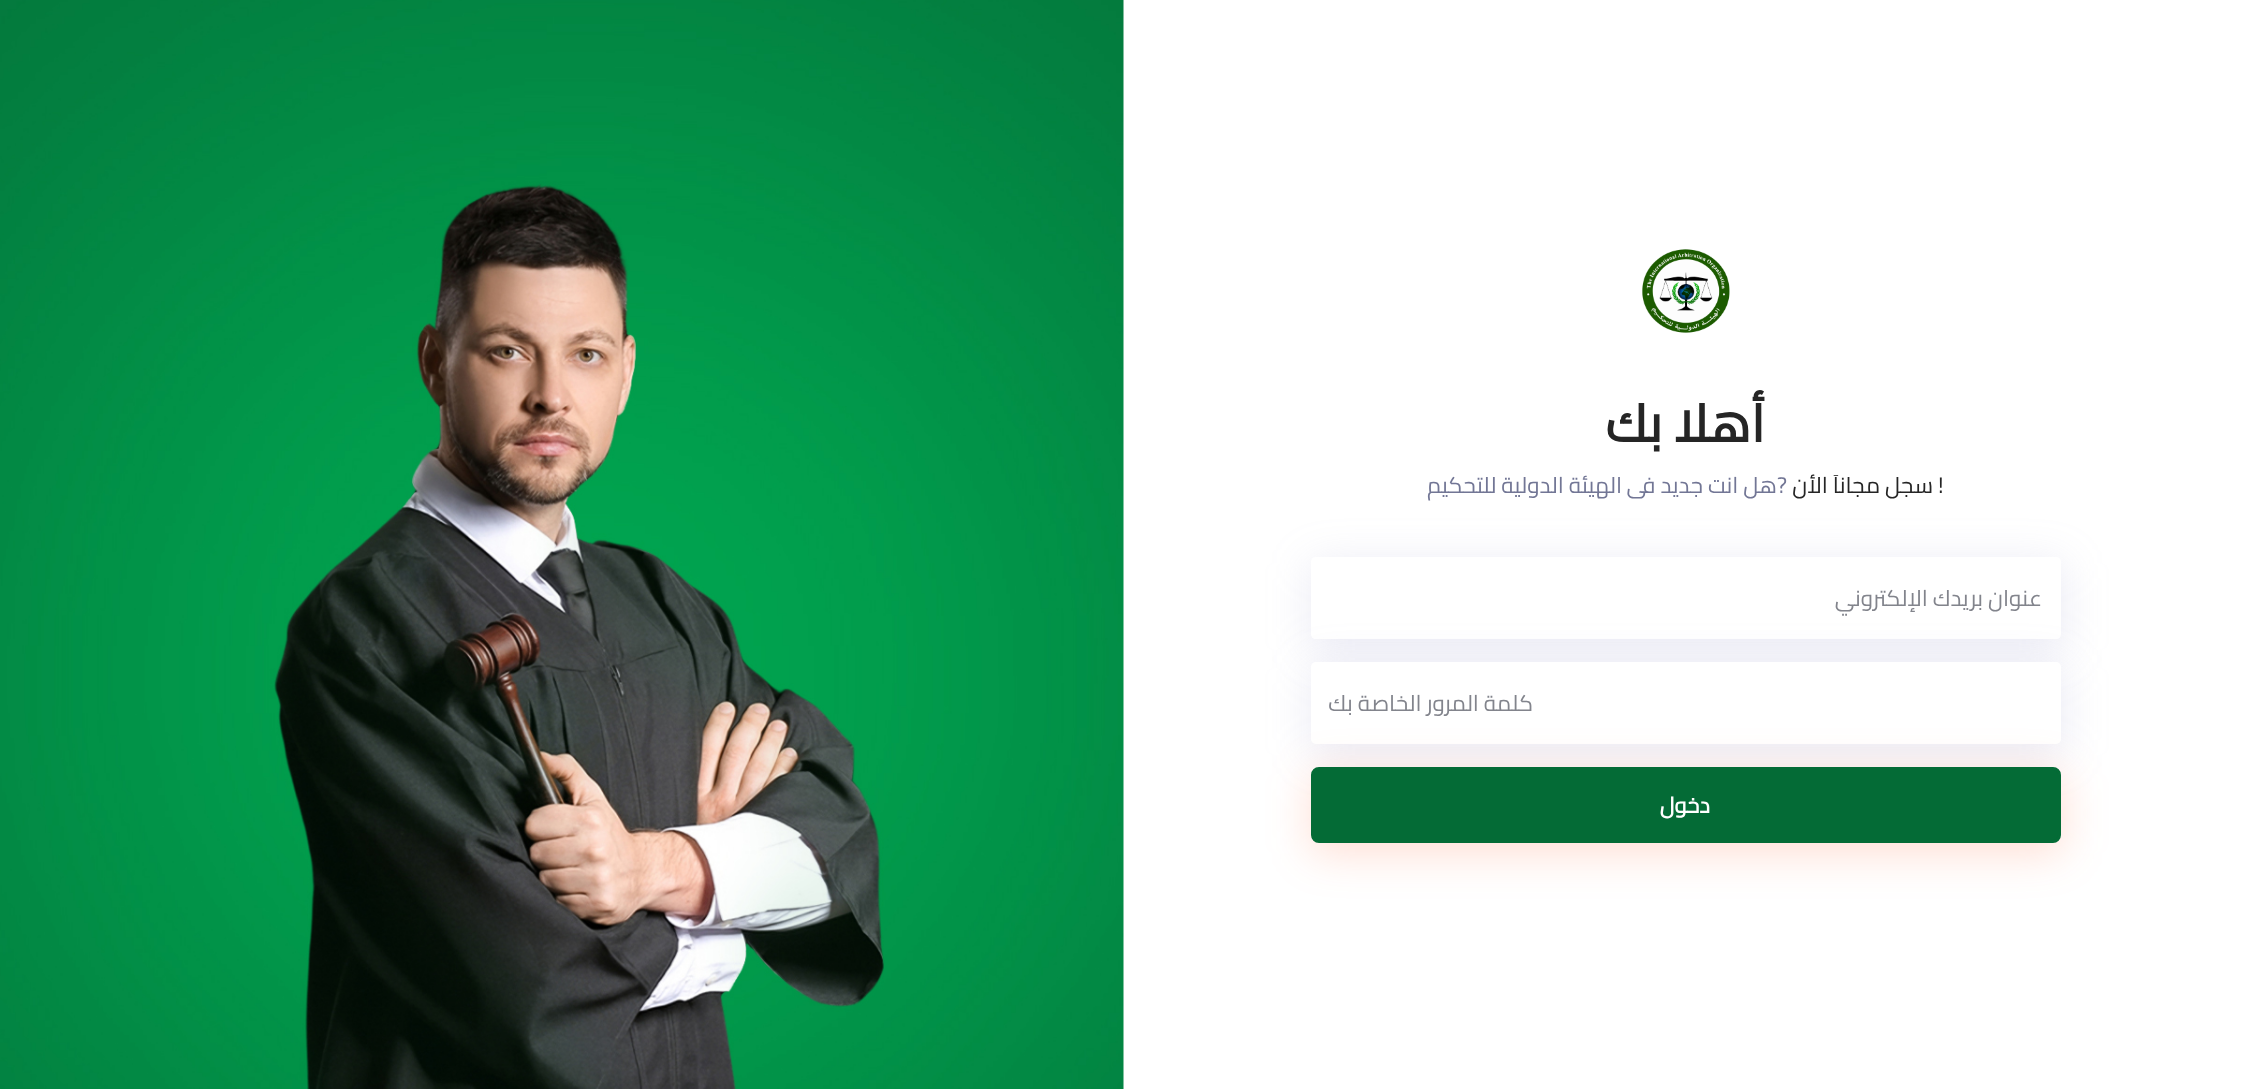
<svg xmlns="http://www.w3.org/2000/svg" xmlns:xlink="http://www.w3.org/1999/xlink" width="2246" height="1089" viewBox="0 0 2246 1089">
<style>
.cls-1{font:bold 52.5px Cairo;direction:rtl;fill:#252525}
.cls-2{font:22.5px Cairo;fill:#252525}
.cls-3{font:22.5px Cairo;direction:rtl;fill:#252525}
.cls-4{font:22.5px Cairo;fill:#727695}
.cls-5{font:22.5px Cairo;direction:rtl;fill:#727695}
.cls-6{font:22.5px Cairo;direction:rtl;fill:#82848c}
.cls-7{font:bold 22px Cairo;direction:rtl;fill:#ffffff}
</style>
<defs>
<clipPath id="clip1"><path d="M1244 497H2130V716H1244ZM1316 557H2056C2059 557 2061 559 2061 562V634C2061 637 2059 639 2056 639H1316C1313 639 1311 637 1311 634V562C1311 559 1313 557 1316 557Z" clip-rule="evenodd"/></clipPath>
</defs>
<rect width="100%" height="100%" fill="#ffffff"/>
<image xlink:href="image0.png" x="1642" y="249" width="88" height="84"/>
<g clip-path="url(#clip1)">
<rect fill="#9598c8" fill-opacity="0.2" filter="blur(21.5px)" x="1310" y="563" width="754" height="87" rx="8"/>
</g>
<rect fill="#9598c8" fill-opacity="0.2" filter="blur(21.5px)" x="1310" y="668" width="754" height="87" rx="8"/>
<rect fill="#ffffff" x="1311" y="662" width="750" height="82" rx="5"/>
<rect fill="#ff612f" fill-opacity="0.2" filter="blur(21.5px)" x="1310" y="773" width="754" height="81" rx="11"/>
<rect fill="#046b36" stroke="#046b36" stroke-width="3" x="1312.5" y="768.5" width="747" height="73" rx="6.5"/>
<image xlink:href="image1.png" x="0" y="0" width="1124" height="1089"/>
<text class="cls-1" x="1765" y="442">أهلا بك</text>
<text class="cls-2" x="1938" y="493">!</text>
<text class="cls-3" x="1933" y="493">سجل مجاناَ الأن</text>
<text class="cls-4" x="1777" y="493">?</text>
<text class="cls-5" x="1777" y="493">هل انت جديد فى</text>
<text class="cls-5" x="1622" y="493">الهيئة الدولية للتحكيم</text>
<text class="cls-6" x="2042" y="606">عنوان بريدك الإلكتروني</text>
<text class="cls-6" x="1533" y="711">كلمة المرور الخاصة بك</text>
<text class="cls-7" x="1710" y="813">دخول</text>
</svg>
